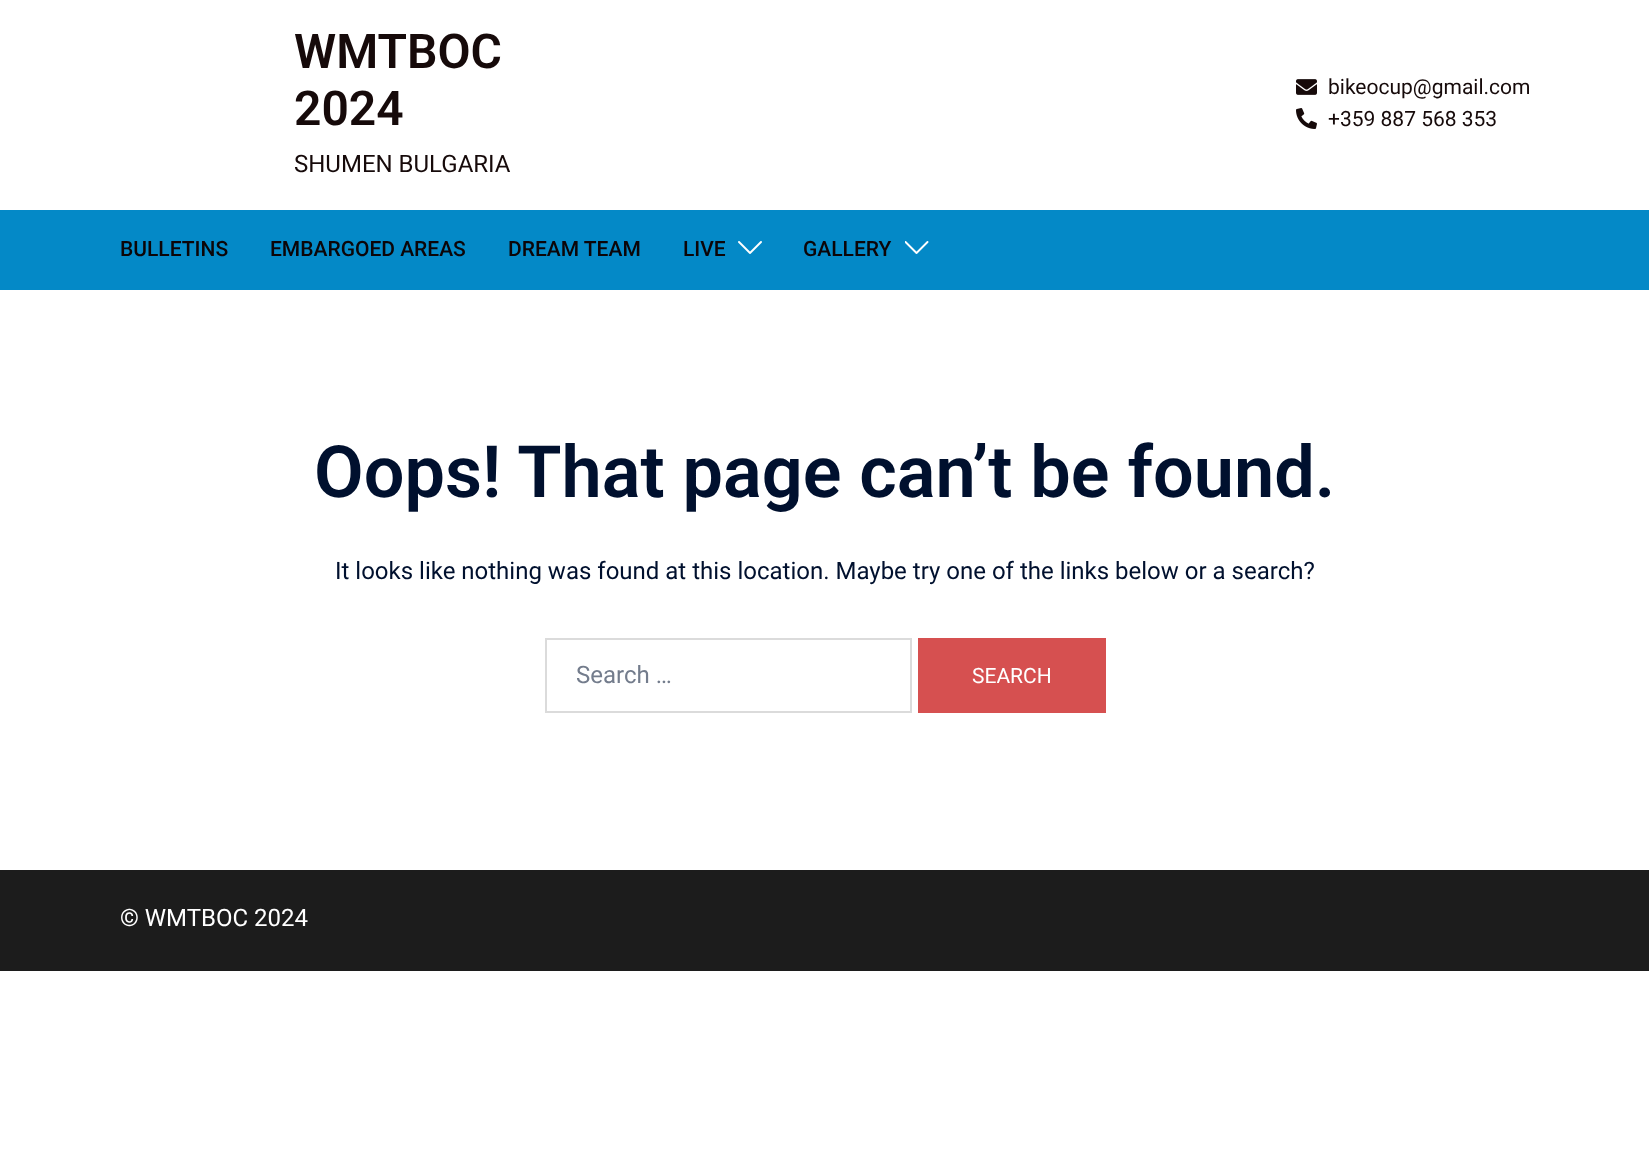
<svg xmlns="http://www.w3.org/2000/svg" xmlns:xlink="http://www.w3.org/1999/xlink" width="1649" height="1151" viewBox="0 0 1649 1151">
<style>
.cls-1{font:600 48px Roboto;fill:#160a0a}
.cls-2{font:24px Roboto;fill:#160a0a}
.cls-3{font:21px Roboto;fill:#160a0a}
.cls-4{font:500 21px Roboto;fill:#0c0508}
.cls-5{font:600 72px Roboto;fill:#00102e}
.cls-6{font:24px Roboto;fill:#00102e}
.cls-7{font:24px Roboto;fill:#737c8c}
.cls-8{font:21px Roboto;fill:#ffffff}
.cls-9{font:24px Roboto;fill:#ffffff}
</style>
<rect width="100%" height="100%" fill="#ffffff"/>
<image xlink:href="image0.png" x="1296" y="79" width="21" height="16"/>
<image xlink:href="image1.png" x="1296" y="108" width="21" height="21"/>
<rect fill="#0489c7" x="0" y="210" width="1649" height="80"/>
<image xlink:href="image2.png" x="738" y="241" width="24" height="13"/>
<image xlink:href="image3.png" x="905" y="241" width="24" height="13"/>
<rect fill="none" stroke="#dbdbdb" stroke-width="2" x="546" y="639" width="365" height="73"/>
<rect fill="#d65050" x="918" y="638" width="188" height="75"/>
<rect fill="#1c1c1c" x="0" y="870" width="1649" height="101"/>
<text class="cls-1"><tspan x="294" y="68">WMTBOC</tspan><tspan x="294" y="125">2024</tspan></text>
<text class="cls-2" x="294" y="172">SHUMEN BULGARIA</text>
<text class="cls-3"><tspan x="1328" y="94">bikeocup@gmail.com</tspan><tspan x="1328" y="126">+359 887 568 353</tspan></text>
<text class="cls-4" x="120" y="256">BULLETINS</text>
<text class="cls-4" x="270" y="256">EMBARGOED AREAS</text>
<text class="cls-4" x="508" y="256">DREAM TEAM</text>
<text class="cls-4" x="683" y="256">LIVE</text>
<text class="cls-4" x="803" y="256">GALLERY</text>
<text class="cls-5" x="314" y="497">Oops! That page can’t be found.</text>
<text class="cls-6" x="335" y="579">It looks like nothing was found at this location. Maybe try one of the links below or a search?</text>
<text class="cls-7" x="576" y="683">Search …</text>
<text class="cls-8" x="972" y="683">SEARCH</text>
<text class="cls-9" x="120" y="926">© WMTBOC 2024</text>
</svg>
